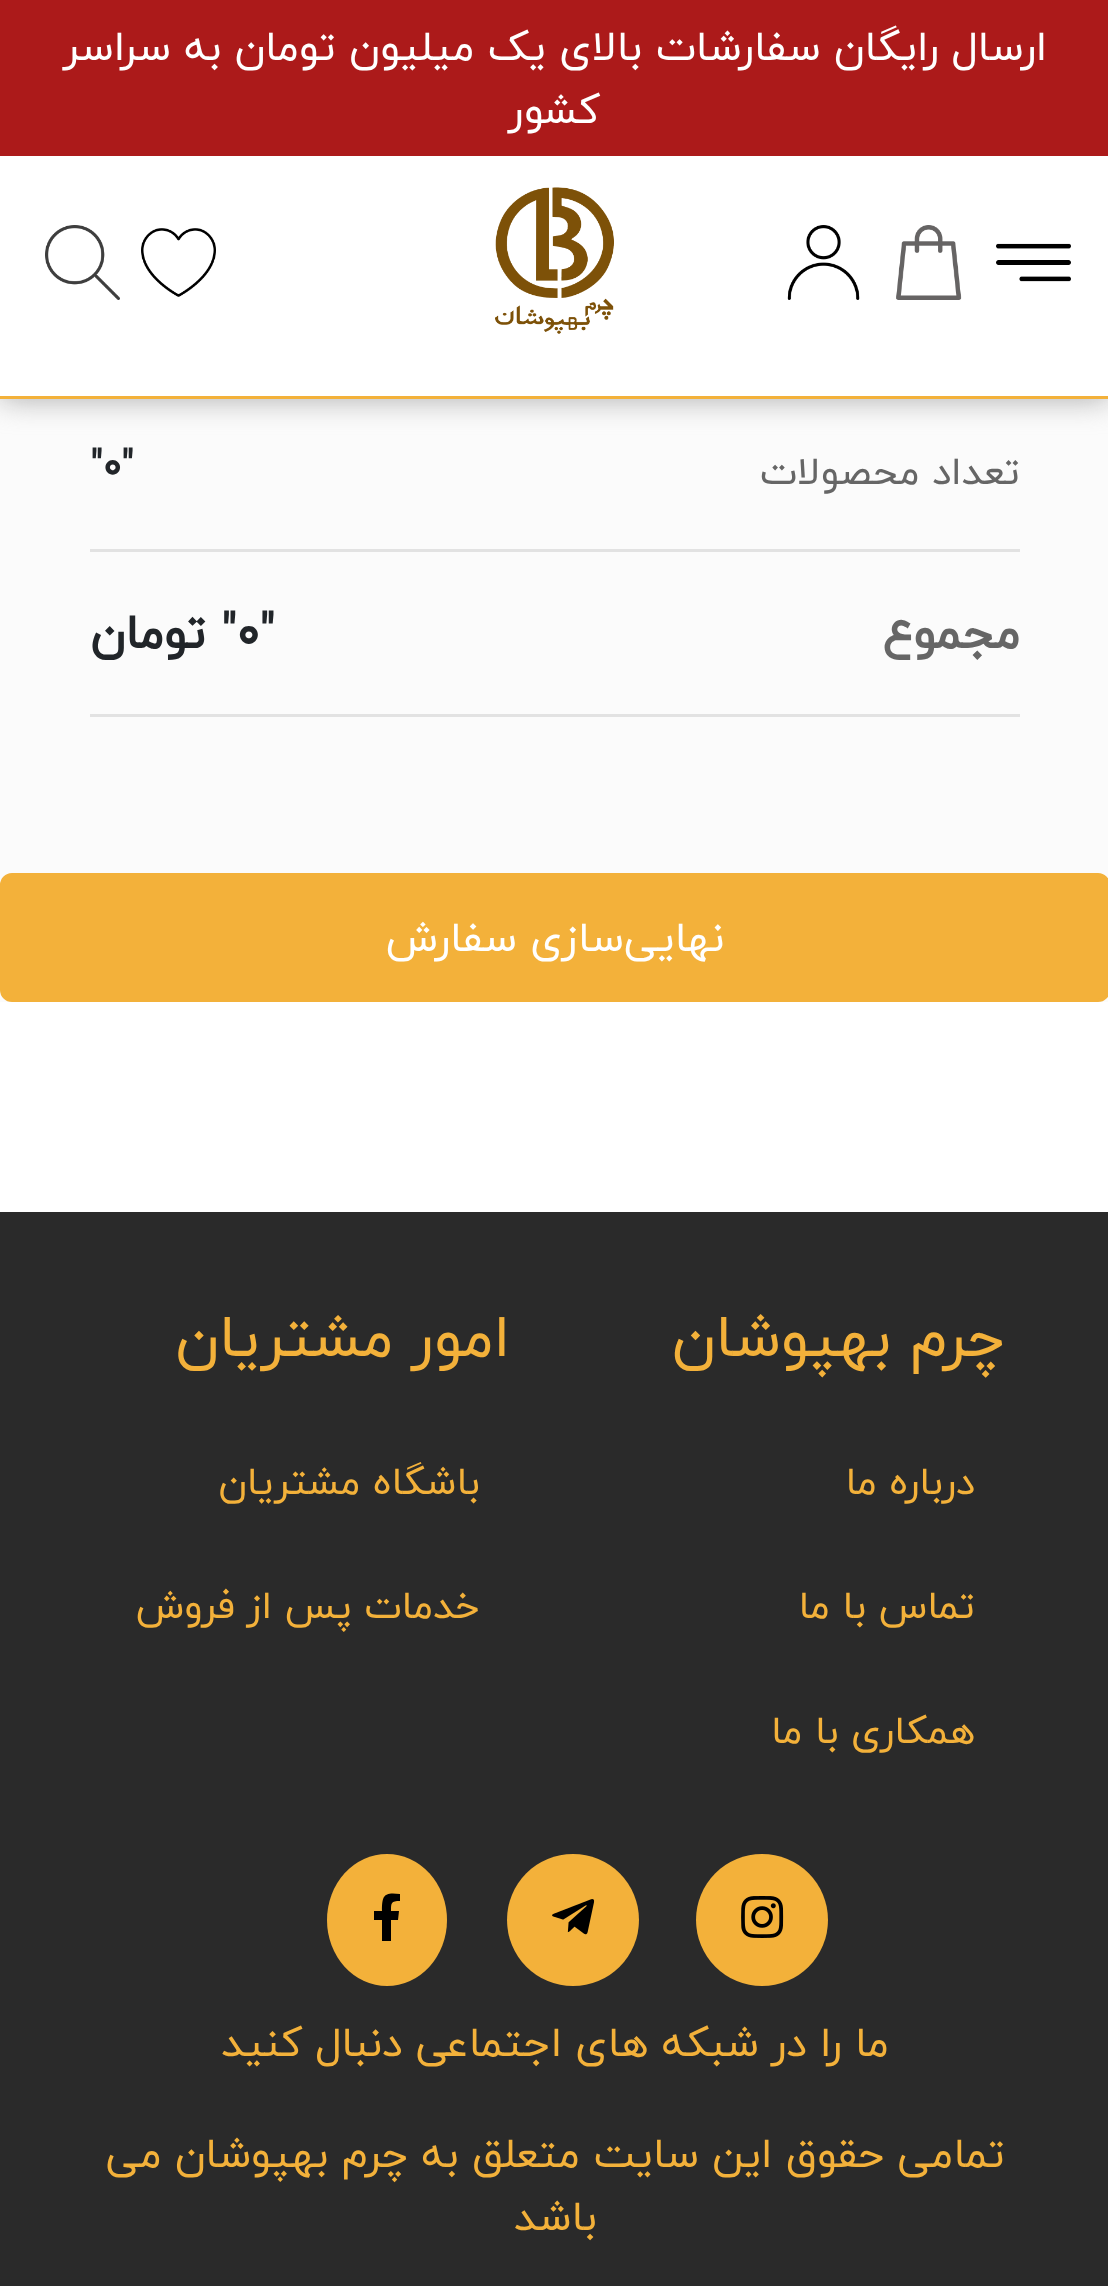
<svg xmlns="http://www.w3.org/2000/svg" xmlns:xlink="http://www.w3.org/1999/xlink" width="1108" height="2286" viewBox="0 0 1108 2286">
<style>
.cls-1{font:42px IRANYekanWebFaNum;direction:rtl;fill:#ffffff}
.cls-2{font:39px IRANYekanWebFaNum;direction:rtl;fill:#666666}
.cls-3{font:bold 39px IRANYekanWebFaNum;fill:#212529}
.cls-4{font:bold 48px IRANYekanWebFaNum;direction:rtl;fill:#666666}
.cls-5{font:bold 48px IRANYekanWebFaNum;fill:#212529}
.cls-6{font:bold 48px IRANYekanWebFaNum;direction:rtl;fill:#212529}
.cls-7{font:60px IRANYekanWebFaNum;direction:rtl;fill:#f3b13a}
.cls-8{font:39px IRANYekanWebFaNum;direction:rtl;fill:#f3b13a}
.cls-9{font:42px IRANYekanWebFaNum;direction:rtl;fill:#f3b13a}
</style>
<rect width="100%" height="100%" fill="#ffffff"/>
<rect fill="#fbfbfb" x="0" y="399" width="1108" height="603"/>
<rect fill="#aaaaaa" filter="blur(15px)" x="0" y="0" width="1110" height="399"/>
<rect fill="#ffffff" x="0" y="156" width="1108" height="240"/>
<rect fill="#f3b13a" x="0" y="396" width="1108" height="3"/>
<rect fill="#ac1a1a" x="0" y="0" width="1108" height="156"/>
<image xlink:href="image0.png" x="996" y="243" width="75" height="39"/>
<image xlink:href="image1.png" x="896" y="225" width="66" height="75"/>
<image xlink:href="image2.png" x="787" y="225" width="73" height="75"/>
<image xlink:href="image3.png" x="495" y="187" width="119" height="147"/>
<image xlink:href="image4.png" x="141" y="228" width="75" height="69"/>
<image xlink:href="image5.png" x="45" y="225" width="75" height="75"/>
<rect fill="#e2e2e2" x="90" y="549" width="930" height="3"/>
<rect fill="#e2e2e2" x="90" y="714" width="930" height="3"/>
<rect fill="#f3b13a" stroke="#f3b13a" stroke-width="3" x="1.5" y="874.5" width="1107" height="126" rx="10.5"/>
<rect fill="#2a2a2a" x="0" y="1212" width="1108" height="1074"/>
<circle fill="#f3b13a" cx="762" cy="1920" r="66"/>
<image xlink:href="image6.png" x="741" y="1896" width="43" height="42"/>
<circle fill="#f3b13a" cx="573" cy="1920" r="66"/>
<image xlink:href="image7.png" x="552" y="1899" width="43" height="36"/>
<ellipse fill="#f3b13a" cx="387" cy="1920" rx="60" ry="66"/>
<path fill="#000000" d="M398 1920H391V1941H382V1920H374V1911H382C382 1895 384 1892 400 1894V1901C391 1901 391 1903 391 1911H399Z"/>
<text class="cls-1" x="1047" y="60">ارسال رایگان سفارشات بالای یک میلیون تومان به سراسر</text>
<text class="cls-1" x="600" y="123">کشور</text>
<text class="cls-2" x="1020" y="484">تعداد محصولات</text>
<text class="cls-3" x="90" y="478">"۰"</text>
<text class="cls-4" x="1020" y="648">مجموع</text>
<text class="cls-5" x="221" y="648">"۰"</text>
<text class="cls-6" x="206" y="648">تومان</text>
<text class="cls-1" x="724" y="951">نهایی‌سازی سفارش</text>
<text class="cls-7" x="1005" y="1356">چرم بهپوشان</text>
<text class="cls-8" x="975" y="1494">درباره ما</text>
<text class="cls-8" x="975" y="1618">تماس با ما</text>
<text class="cls-8" x="975" y="1743">همکاری با ما</text>
<text class="cls-7" x="510" y="1356">امور مشتریان</text>
<text class="cls-8" x="480" y="1494">باشگاه مشتریان</text>
<text class="cls-8" x="480" y="1618">خدمات پس از فروش</text>
<text class="cls-9" x="889" y="2056">ما را در شبکه های اجتماعی دنبال کنید</text>
<text class="cls-9" x="1005" y="2167">تمامی حقوق این سایت متعلق به چرم بهپوشان می</text>
<text class="cls-9" x="597" y="2230">باشد</text>
</svg>
